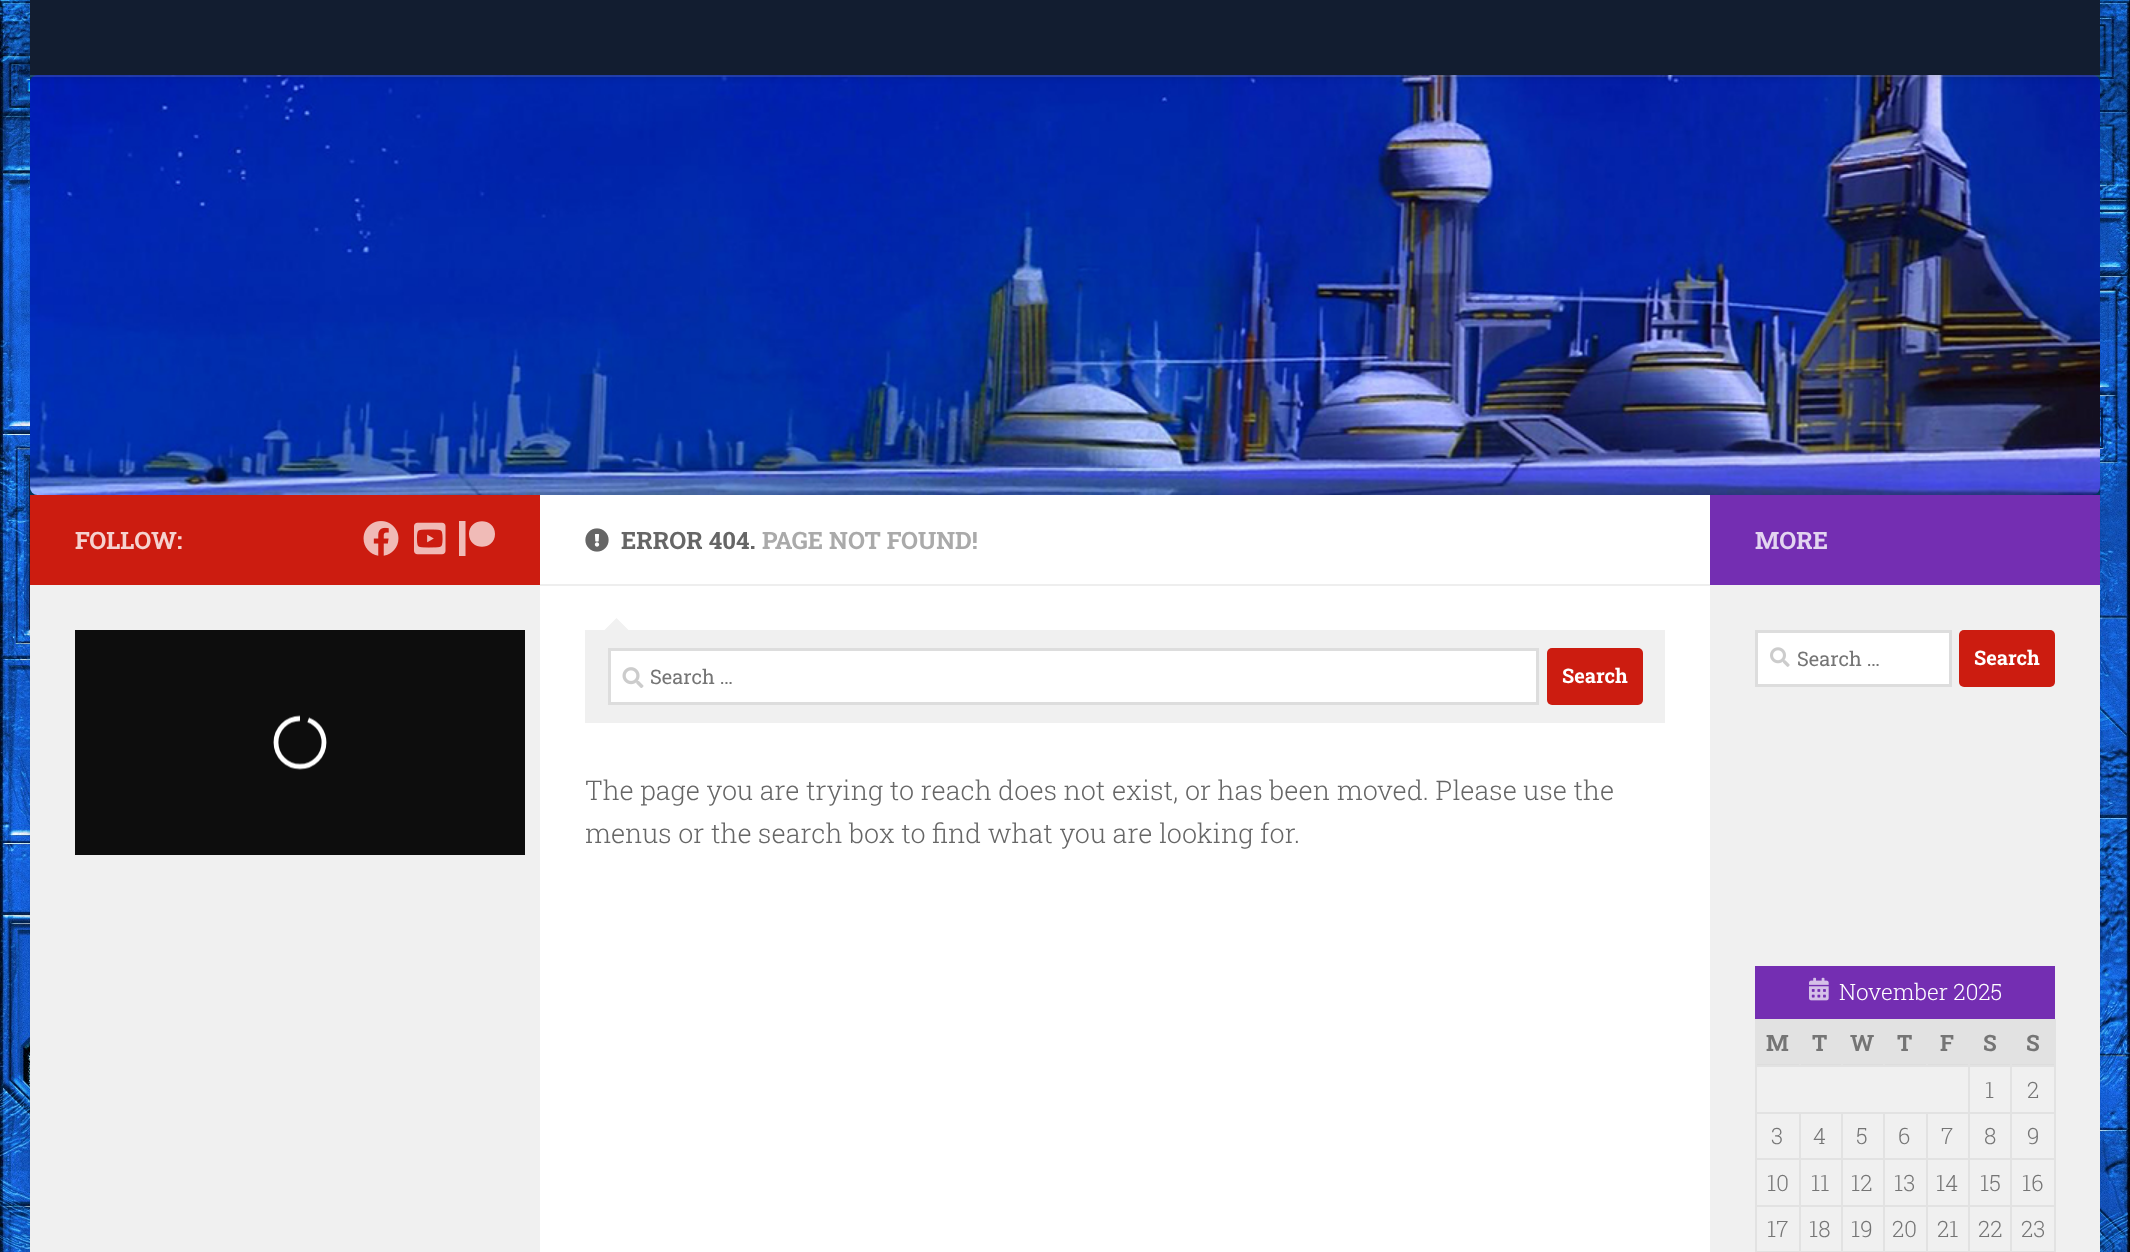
<svg xmlns="http://www.w3.org/2000/svg" xmlns:xlink="http://www.w3.org/1999/xlink" width="2130" height="1252" viewBox="0 0 2130 1252">
<style>
.cls-1{font:bold 24px Roboto Slab;fill:#f5d2cf}
.cls-2{font:bold 24px Roboto Slab;fill:#666666}
.cls-3{font:bold 24px Roboto Slab;fill:#aaaaaa}
.cls-4{font:20px Roboto Slab;fill:#757575}
.cls-5{font:bold 20px Roboto Slab;fill:#ffffff}
.cls-6{font:300 27px Roboto Slab;fill:#666666}
.cls-7{font:bold 24px Roboto Slab;fill:#e3d5f0}
.cls-8{font:300 22.5px Roboto Slab;fill:#ffffff}
.cls-9{font:bold 22.5px Roboto Slab;fill:#757575}
.cls-10{font:300 22.5px Roboto Slab;fill:#757575}
</style>
<rect width="100%" height="100%" fill="#ffffff"/>
<image xlink:href="image0.png" x="0" y="0" width="2130" height="1252"/>
<path fill="#000000" fill-opacity="0.04" d="M21 0V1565H2091V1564H30V0Z"/>
<path fill="#000000" fill-opacity="0.04" d="M39 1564V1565H2109V0H2100V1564Z"/>
<rect fill="#000000" fill-opacity="0.1" filter="blur(1px)" x="30" y="497" width="2070" height="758"/>
<rect fill="#003759" x="30" y="75" width="2070" height="420"/>
<image xlink:href="image1.png" x="30" y="75" width="2070" height="420"/>
<rect fill="#ffffff" fill-opacity="0.15" x="30" y="75" width="2070" height="2"/>
<rect fill="#000000" fill-opacity="0.2" filter="blur(4px)" x="30" y="0" width="2070" height="75"/>
<rect fill="#121d30" x="30" y="0" width="2070" height="75"/>
<rect fill="#ffffff" x="540" y="495" width="1170" height="757"/>
<rect fill="#cc1c10" x="30" y="495" width="510" height="90"/>
<image xlink:href="image2.png" x="363" y="521" width="36" height="35"/>
<image xlink:href="image3.png" x="414" y="522" width="32" height="33"/>
<path fill="#f0bbb7" d="M495 534C495 551 469 551 469 534C469 517 495 517 495 534ZM459 556V521H465.5V556Z"/>
<rect fill="#f0f0f0" x="30" y="585" width="510" height="667"/>
<image xlink:href="image4.png" x="75" y="630" width="450" height="225"/>
<rect fill="#eeeeee" x="540" y="584" width="1170" height="2"/>
<image xlink:href="image5.png" x="585" y="528" width="24" height="24"/>
<rect fill="#f0f0f0" x="585" y="630" width="1080" height="93"/>
<path fill="#f1f1f1" d="M628.5 630H604.5L616.5 618Z"/>
<rect fill="#ffffff" stroke="#dddddd" stroke-width="3" x="609.5" y="649.5" width="928" height="54"/>
<image xlink:href="image6.png" x="622" y="667" width="22" height="21"/>
<rect fill="#cc1c10" x="1547" y="648" width="96" height="57" rx="5"/>
<rect fill="#742eb2" x="1710" y="495" width="390" height="90"/>
<rect fill="#f0f0f0" x="1710" y="585" width="390" height="667"/>
<rect fill="#ffffff" stroke="#dddddd" stroke-width="3" x="1756.5" y="631.5" width="194" height="54"/>
<image xlink:href="image7.png" x="1770" y="647" width="20" height="20"/>
<rect fill="#cc1c10" x="1959" y="630" width="96" height="57" rx="5"/>
<rect fill="#742eb2" x="1755" y="966" width="300" height="53"/>
<image xlink:href="image8.png" x="1809" y="977" width="20" height="24"/>
<rect fill="#e2e2e2" x="1757" y="1019" width="297" height="45"/>
<rect fill="#dddddd" x="1757" y="1064" width="298" height="1"/>
<rect fill="#e2e2e2" x="2010" y="1065" width="45" height="2"/>
<rect fill="#e2e2e2" x="2010" y="1112" width="45" height="2"/>
<rect fill="#e2e2e2" x="2010" y="1158" width="45" height="2"/>
<rect fill="#e2e2e2" x="2010" y="1205" width="45" height="2"/>
<rect fill="#e2e2e2" x="1755" y="1251" width="300" height="1"/>
<rect fill="#e2e2e2" x="2010" y="1205" width="2" height="47"/>
<rect fill="#e2e2e2" x="1968" y="1205" width="44" height="2"/>
<rect fill="#e2e2e2" x="2010" y="1158" width="2" height="48"/>
<rect fill="#e2e2e2" x="1968" y="1158" width="44" height="2"/>
<rect fill="#e2e2e2" x="2010" y="1112" width="2" height="48"/>
<rect fill="#e2e2e2" x="1968" y="1112" width="44" height="2"/>
<rect fill="#e2e2e2" x="2010" y="1065" width="2" height="48"/>
<rect fill="#e2e2e2" x="1968" y="1065" width="44" height="2"/>
<rect fill="#e2e2e2" x="1968" y="1205" width="2" height="47"/>
<rect fill="#e2e2e2" x="1926" y="1205" width="44" height="2"/>
<rect fill="#e2e2e2" x="1968" y="1158" width="2" height="48"/>
<rect fill="#e2e2e2" x="1926" y="1158" width="44" height="2"/>
<rect fill="#e2e2e2" x="1968" y="1112" width="2" height="48"/>
<rect fill="#e2e2e2" x="1926" y="1112" width="44" height="2"/>
<rect fill="#e2e2e2" x="1968" y="1065" width="2" height="48"/>
<rect fill="#e2e2e2" x="1755" y="1065" width="215" height="2"/>
<rect fill="#e2e2e2" x="1926" y="1205" width="2" height="47"/>
<rect fill="#e2e2e2" x="1883" y="1205" width="45" height="2"/>
<rect fill="#e2e2e2" x="1926" y="1158" width="2" height="48"/>
<rect fill="#e2e2e2" x="1883" y="1158" width="45" height="2"/>
<rect fill="#e2e2e2" x="1926" y="1112" width="2" height="48"/>
<rect fill="#e2e2e2" x="1883" y="1112" width="45" height="2"/>
<rect fill="#e2e2e2" x="1883" y="1205" width="2" height="47"/>
<rect fill="#e2e2e2" x="1841" y="1205" width="43" height="2"/>
<rect fill="#e2e2e2" x="1883" y="1158" width="2" height="48"/>
<rect fill="#e2e2e2" x="1841" y="1158" width="43" height="2"/>
<rect fill="#e2e2e2" x="1883" y="1112" width="2" height="48"/>
<rect fill="#e2e2e2" x="1841" y="1112" width="43" height="2"/>
<rect fill="#e2e2e2" x="1841" y="1205" width="2" height="47"/>
<rect fill="#e2e2e2" x="1799" y="1205" width="43" height="2"/>
<rect fill="#e2e2e2" x="1841" y="1158" width="2" height="48"/>
<rect fill="#e2e2e2" x="1799" y="1158" width="43" height="2"/>
<rect fill="#e2e2e2" x="1841" y="1112" width="2" height="48"/>
<rect fill="#e2e2e2" x="1799" y="1112" width="43" height="2"/>
<rect fill="#e2e2e2" x="1799" y="1205" width="2" height="47"/>
<rect fill="#e2e2e2" x="1755" y="1205" width="45" height="2"/>
<rect fill="#e2e2e2" x="1799" y="1158" width="2" height="48"/>
<rect fill="#e2e2e2" x="1755" y="1158" width="45" height="2"/>
<rect fill="#e2e2e2" x="1799" y="1112" width="2" height="48"/>
<rect fill="#e2e2e2" x="1755" y="1112" width="45" height="2"/>
<rect fill="#e2e2e2" x="1755" y="1205" width="2" height="47"/>
<rect fill="#e2e2e2" x="1755" y="1158" width="2" height="48"/>
<rect fill="#e2e2e2" x="1755" y="1112" width="2" height="48"/>
<rect fill="#e2e2e2" x="1755" y="1065" width="2" height="48"/>
<rect fill="#e2e2e2" x="1755" y="1019" width="2" height="48"/>
<rect fill="#e2e2e2" x="1799" y="1064" width="2" height="3"/>
<rect fill="#e2e2e2" x="1841" y="1064" width="2" height="3"/>
<rect fill="#e2e2e2" x="1883" y="1064" width="2" height="3"/>
<rect fill="#e2e2e2" x="1926" y="1064" width="2" height="3"/>
<rect fill="#e2e2e2" x="1968" y="1064" width="2" height="3"/>
<rect fill="#e2e2e2" x="2010" y="1064" width="2" height="3"/>
<rect fill="#e2e2e2" x="2054" y="1205" width="2" height="47"/>
<rect fill="#e2e2e2" x="2054" y="1158" width="2" height="48"/>
<rect fill="#e2e2e2" x="2054" y="1112" width="2" height="48"/>
<rect fill="#e2e2e2" x="2054" y="1019" width="2" height="94"/>
<text class="cls-1" x="75" y="549">FOLLOW:</text>
<text class="cls-2" x="621" y="549">ERROR 404.</text>
<text class="cls-3" x="762" y="549">PAGE NOT FOUND!</text>
<text class="cls-4" x="650" y="684">Search …</text>
<text class="cls-5" x="1562" y="683">Search</text>
<text class="cls-6"><tspan x="585" y="800">The page you are trying to reach does not exist, or has been moved. Please use the</tspan><tspan x="585" y="843">menus or the search box to find what you are looking for.</tspan></text>
<text class="cls-7" x="1755" y="549">MORE</text>
<text class="cls-4" x="1797" y="666">Search …</text>
<text class="cls-5" x="1974" y="665">Search</text>
<text class="cls-8" x="1839" y="1000">November 2025</text>
<text class="cls-9" x="1766" y="1051">M</text>
<text class="cls-9" x="1812" y="1051">T</text>
<text class="cls-9" x="1850" y="1051">W</text>
<text class="cls-9" x="1897" y="1051">T</text>
<text class="cls-9" x="1940" y="1051">F</text>
<text class="cls-9" x="1983" y="1051">S</text>
<text class="cls-9" x="2026" y="1051">S</text>
<text class="cls-10" x="1985" y="1098">1</text>
<text class="cls-10" x="2027" y="1098">2</text>
<text class="cls-10" x="1771" y="1144">3</text>
<text class="cls-10" x="1813" y="1144">4</text>
<text class="cls-10" x="1856" y="1144">5</text>
<text class="cls-10" x="1898" y="1144">6</text>
<text class="cls-10" x="1941" y="1144">7</text>
<text class="cls-10" x="1984" y="1144">8</text>
<text class="cls-10" x="2027" y="1144">9</text>
<text class="cls-10" x="1767" y="1191">10</text>
<text class="cls-10" x="1811" y="1191">11</text>
<text class="cls-10" x="1851" y="1191">12</text>
<text class="cls-10" x="1894" y="1191">13</text>
<text class="cls-10" x="1936" y="1191">14</text>
<text class="cls-10" x="1980" y="1191">15</text>
<text class="cls-10" x="2022" y="1191">16</text>
<text class="cls-10" x="1767" y="1237">17</text>
<text class="cls-10" x="1809" y="1237">18</text>
<text class="cls-10" x="1851" y="1237">19</text>
<text class="cls-10" x="1892" y="1237">20</text>
<text class="cls-10" x="1937" y="1237">21</text>
<text class="cls-10" x="1978" y="1237">22</text>
<text class="cls-10" x="2021" y="1237">23</text>
</svg>
